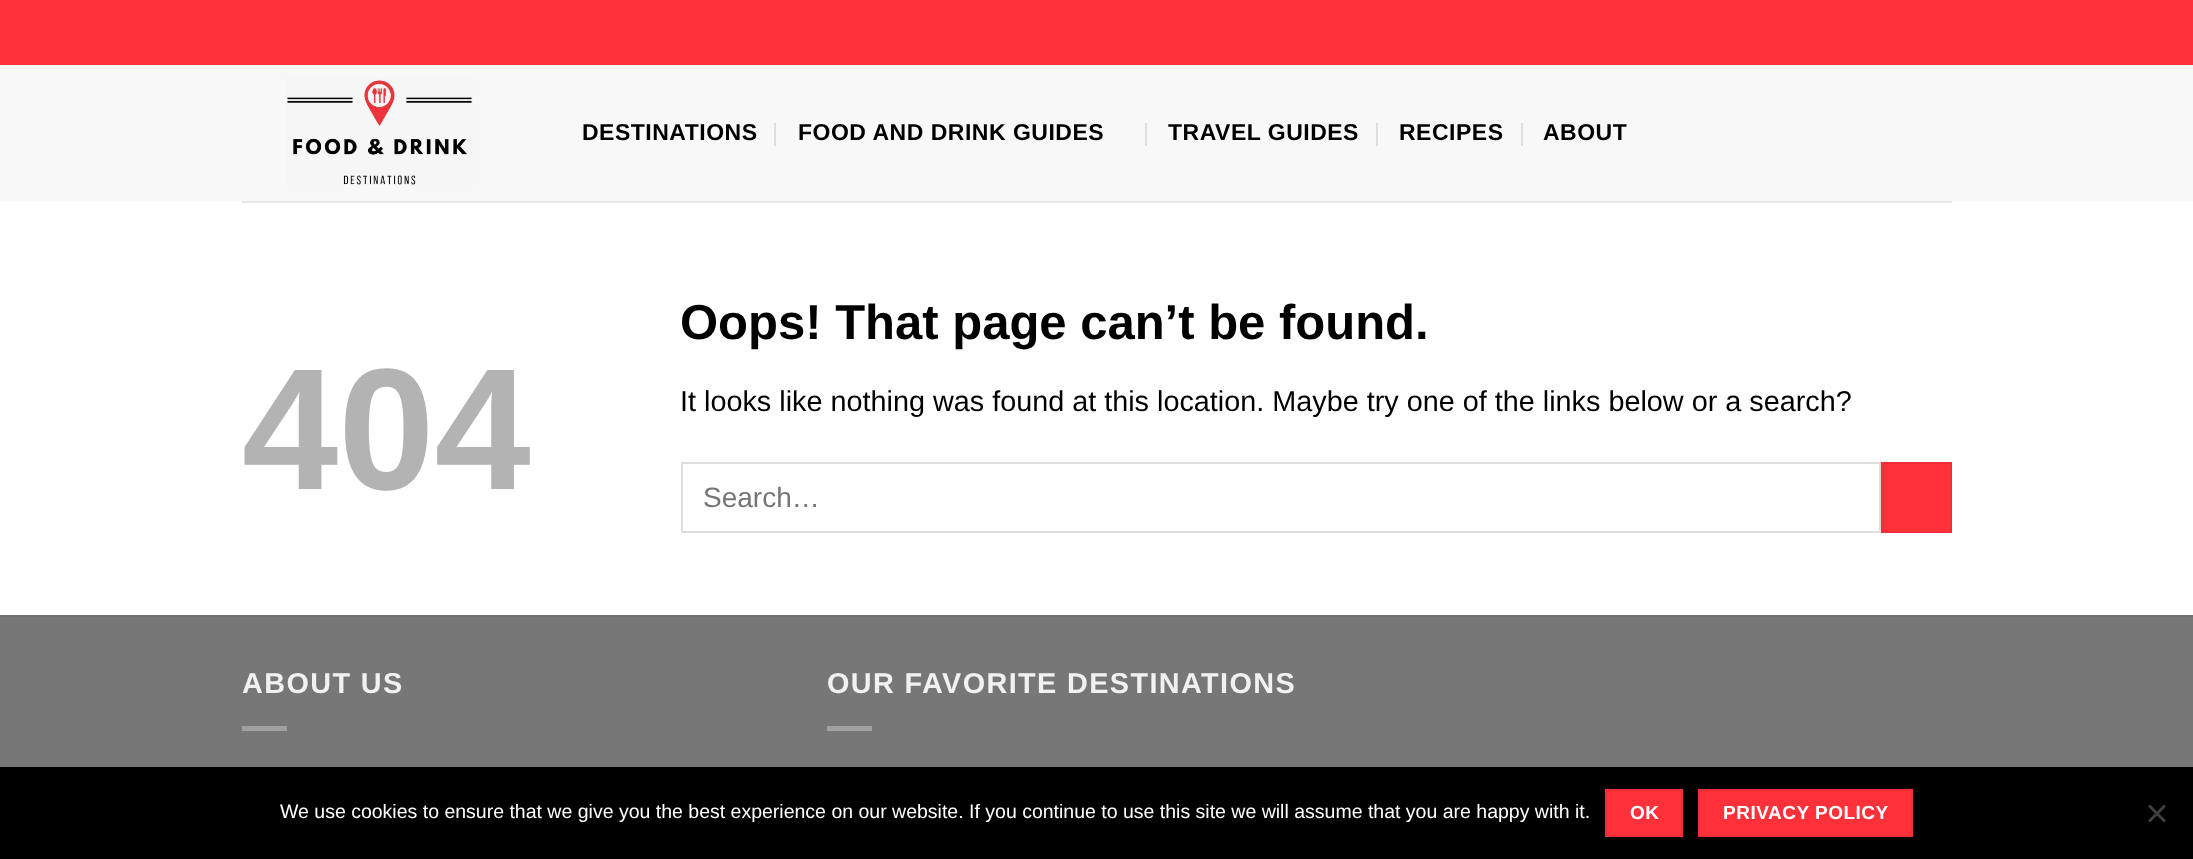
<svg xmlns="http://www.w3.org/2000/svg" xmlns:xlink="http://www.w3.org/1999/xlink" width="2193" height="859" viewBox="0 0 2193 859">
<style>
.cls-1{font:bold 23px Liberation Sans;letter-spacing:0.5px;fill:#000000}
.cls-2{font:bold 173px Liberation Sans;fill:#b3b3b3}
.cls-3{font:bold 49px Liberation Sans;fill:#000000}
.cls-4{font:28.8px Liberation Sans;fill:#000000}
.cls-5{font:28px Liberation Sans;fill:#757575}
.cls-6{font:bold 28.8px Liberation Sans;letter-spacing:1.4px;fill:#f1f1f1}
.cls-7{font:19.5px Liberation Sans;fill:#ffffff}
.cls-8{font:bold 19px Liberation Sans;letter-spacing:0.5px;fill:#ffffff}
</style>
<rect width="100%" height="100%" fill="#ffffff"/>
<rect fill="#fe303a" x="0" y="0" width="2193" height="65"/>
<rect fill="#f8f8f8" x="0" y="65" width="2193" height="136"/>
<image xlink:href="image0.png" x="286" y="77" width="187" height="108"/>
<rect fill="#dfdfdf" x="774" y="123" width="2" height="23"/>
<rect fill="#dfdfdf" x="1145" y="123" width="2" height="23"/>
<rect fill="#dfdfdf" x="1376" y="123" width="2" height="23"/>
<rect fill="#dfdfdf" x="1521" y="123" width="2" height="23"/>
<rect fill="#e6e6e6" x="242" y="201" width="1710" height="2"/>
<rect fill="none" stroke="#dddddd" stroke-width="2" x="682" y="463" width="1198" height="69"/>
<rect fill="#fe303a" stroke="#f12e37" stroke-width="2" x="1882" y="463" width="69" height="69"/>
<rect fill="#777777" x="0" y="617" width="2193" height="150"/>
<rect fill="#717171" x="0" y="615" width="2193" height="2"/>
<rect fill="#a0a0a0" x="242" y="726" width="45" height="5"/>
<rect fill="#a0a0a0" x="827" y="726" width="45" height="5"/>
<rect fill="#000000" x="0" y="767" width="2193" height="92"/>
<rect fill="#fe303a" stroke="#f12e37" stroke-width="2" x="1606" y="790" width="76" height="46"/>
<rect fill="#fe303a" stroke="#f12e37" stroke-width="2" x="1699" y="790" width="213" height="46"/>
<path fill="#404040" d="M2164 804.5L2166 806.5L2150 822.5L2148 820.5Z"/>
<path fill="#404040" d="M2148 806.5L2150 804.5L2166 820.5L2164 822.5Z"/>
<text class="cls-1" x="582" y="140">DESTINATIONS</text>
<text class="cls-1" x="798" y="140">FOOD AND DRINK GUIDES</text>
<text class="cls-1" x="1168" y="140">TRAVEL GUIDES</text>
<text class="cls-1" x="1399" y="140">RECIPES</text>
<text class="cls-1" x="1543" y="140">ABOUT</text>
<text class="cls-2" x="242" y="489">404</text>
<text class="cls-3" x="680" y="339">Oops! That page can’t be found.</text>
<text class="cls-4" x="680" y="411">It looks like nothing was found at this location. Maybe try one of the links below or a search?</text>
<text class="cls-5" x="703" y="507">Search…</text>
<text class="cls-6" x="242" y="693">ABOUT US</text>
<text class="cls-6" x="827" y="693">OUR FAVORITE DESTINATIONS</text>
<text class="cls-7" x="280" y="818">We use cookies to ensure that we give you the best experience on our website. If you continue to use this site we will assume that you are happy with it.</text>
<text class="cls-8" x="1630" y="819">OK</text>
<text class="cls-8" x="1723" y="819">PRIVACY POLICY</text>
</svg>
